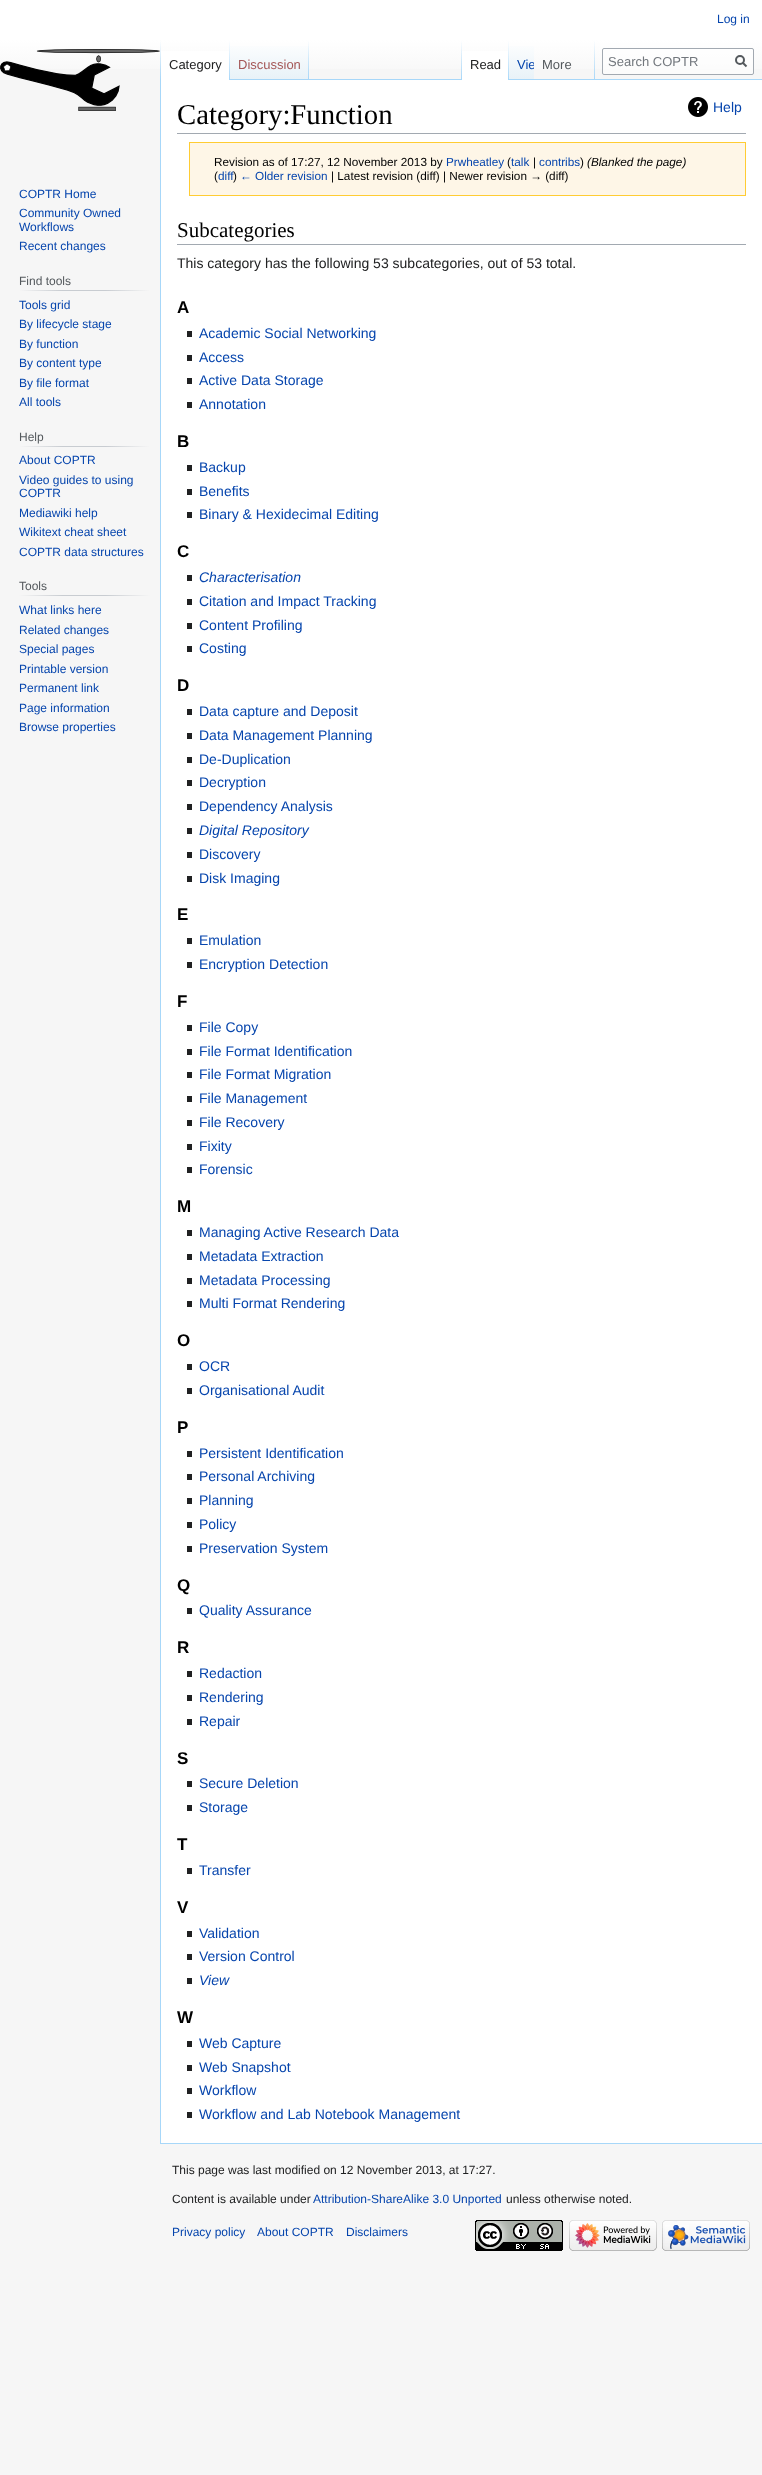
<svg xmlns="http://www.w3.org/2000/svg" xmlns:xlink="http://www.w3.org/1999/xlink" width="762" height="2475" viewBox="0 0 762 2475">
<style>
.cls-1{font:12px Liberation Sans;fill:#0645ad}
.cls-2{font:13px Liberation Sans;fill:#202122}
.cls-3{font:13px Liberation Sans;fill:#a55858}
.cls-4{font:13px Liberation Sans;fill:#0645ad}
.cls-5{font:13px Liberation Sans;fill:#54595d}
.cls-6{font:13px Liberation Sans;fill:#72777d}
.cls-7{font:12px Liberation Sans;fill:#54595d}
.cls-8{font:28.75px Liberation Serif;fill:#000000}
.cls-9{font:14px Liberation Sans;fill:#0645ad}
.cls-10{font:11.75px Liberation Sans;fill:#000000}
.cls-11{font:11.75px Liberation Sans;fill:#0645ad}
.cls-12{font:italic 11.75px Liberation Sans;fill:#000000}
.cls-13{font:21px Liberation Serif;fill:#000000}
.cls-14{font:14px Liberation Sans;fill:#202122}
.cls-15{font:bold 17px Liberation Sans;fill:#000000}
.cls-16{font:italic 14px Liberation Sans;fill:#0645ad}
.cls-17{font:12px Liberation Sans;fill:#202122}
</style>
<defs>
<linearGradient id="g1" gradientUnits="userSpaceOnUse" x1="381" y1="0" x2="381" y2="80"><stop offset="0.5" stop-color="#ffffff"/><stop offset="1" stop-color="#f6f6f6"/></linearGradient>
<linearGradient id="g2" gradientUnits="userSpaceOnUse" x1="161" y1="40" x2="161" y2="80"><stop offset="0" stop-color="#a7d7f9" stop-opacity="0"/><stop offset="1" stop-color="#a7d7f9"/></linearGradient>
<linearGradient id="g3" gradientUnits="userSpaceOnUse" x1="230" y1="40" x2="230" y2="80"><stop offset="0" stop-color="#ffffff"/><stop offset="1" stop-color="#a7d7f9"/></linearGradient>
<linearGradient id="g4" gradientUnits="userSpaceOnUse" x1="270" y1="80" x2="270" y2="40"><stop offset="0" stop-color="#77c1f6"/><stop offset="0.03" stop-color="#e8f2f8"/><stop offset="1" stop-color="#ffffff"/></linearGradient>
<linearGradient id="g5" gradientUnits="userSpaceOnUse" x1="309" y1="40" x2="309" y2="80"><stop offset="0" stop-color="#a7d7f9" stop-opacity="0"/><stop offset="1" stop-color="#a7d7f9"/></linearGradient>
<linearGradient id="g6" gradientUnits="userSpaceOnUse" x1="462" y1="40" x2="462" y2="80"><stop offset="0" stop-color="#a7d7f9" stop-opacity="0"/><stop offset="1" stop-color="#a7d7f9"/></linearGradient>
<linearGradient id="g7" gradientUnits="userSpaceOnUse" x1="509" y1="40" x2="509" y2="80"><stop offset="0" stop-color="#ffffff"/><stop offset="1" stop-color="#a7d7f9"/></linearGradient>
<linearGradient id="g8" gradientUnits="userSpaceOnUse" x1="522" y1="80" x2="522" y2="40"><stop offset="0" stop-color="#77c1f6"/><stop offset="0.03" stop-color="#e8f2f8"/><stop offset="1" stop-color="#ffffff"/></linearGradient>
<linearGradient id="g9" gradientUnits="userSpaceOnUse" x1="595" y1="40" x2="595" y2="80"><stop offset="0" stop-color="#a7d7f9" stop-opacity="0"/><stop offset="1" stop-color="#a7d7f9"/></linearGradient>
<linearGradient id="g10" gradientUnits="userSpaceOnUse" x1="19" y1="291" x2="150" y2="291"><stop offset="0" stop-color="#f6f6f6"/><stop offset="0.33" stop-color="#c8ccd1"/><stop offset="0.66" stop-color="#c8ccd1"/><stop offset="1" stop-color="#f6f6f6"/></linearGradient>
<linearGradient id="g11" gradientUnits="userSpaceOnUse" x1="19" y1="447" x2="150" y2="447"><stop offset="0" stop-color="#f6f6f6"/><stop offset="0.33" stop-color="#c8ccd1"/><stop offset="0.66" stop-color="#c8ccd1"/><stop offset="1" stop-color="#f6f6f6"/></linearGradient>
<linearGradient id="g12" gradientUnits="userSpaceOnUse" x1="19" y1="596" x2="150" y2="596"><stop offset="0" stop-color="#f6f6f6"/><stop offset="0.33" stop-color="#c8ccd1"/><stop offset="0.66" stop-color="#c8ccd1"/><stop offset="1" stop-color="#f6f6f6"/></linearGradient>
<clipPath id="clip1"><rect x="509" y="40" width="25" height="40"/></clipPath>
</defs>
<rect width="100%" height="100%" fill="#f6f6f6"/>
<rect fill="url(#g1)" x="0" y="0" width="762" height="69"/>
<rect fill="#a7d7f9" x="160" y="2143" width="602" height="1"/>
<rect fill="#a7d7f9" x="160" y="79" width="1" height="2065"/>
<rect fill="url(#g2)" x="160" y="40" width="1" height="40"/>
<rect fill="#ffffff" x="161" y="51" width="68" height="29"/>
<rect fill="url(#g3)" x="229" y="40" width="1" height="40"/>
<rect fill="url(#g4)" x="230" y="46" width="79" height="34"/>
<rect fill="url(#g5)" x="308" y="40" width="1" height="40"/>
<rect fill="#a7d7f9" x="309" y="79" width="453" height="1"/>
<rect fill="url(#g6)" x="461" y="40" width="1" height="40"/>
<rect fill="#ffffff" x="462" y="51" width="46" height="29"/>
<rect fill="url(#g7)" x="508" y="40" width="1" height="40"/>
<rect fill="url(#g8)" x="509" y="46" width="25" height="33"/>
<rect fill="url(#g9)" x="594" y="40" width="1" height="40"/>
<rect fill="#ffffff" fill-opacity="0.5" stroke="#a2a9b1" x="602.5" y="48.5" width="151" height="26" rx="1.5"/>
<path fill="none" stroke="#54595d" stroke-width="2" d="M746.5 66.5L742.5 62.5"/>
<circle fill="none" stroke="#54595d" stroke-width="2" cx="740" cy="60" r="4"/>
<image xlink:href="image0.png" x="0" y="49" width="160" height="62"/>
<rect fill="url(#g10)" x="19" y="290" width="131" height="1"/>
<rect fill="url(#g11)" x="19" y="446" width="131" height="1"/>
<rect fill="url(#g12)" x="19" y="595" width="131" height="1"/>
<rect fill="#ffffff" x="161" y="80" width="601" height="2063"/>
<rect fill="#a2a9b1" x="177" y="133" width="569" height="1"/>
<image xlink:href="image1.png" x="688" y="97" width="20" height="20"/>
<rect fill="#fef6e7" stroke="#ffcc33" x="189.5" y="142.5" width="556" height="53"/>
<rect fill="#a2a9b1" x="177" y="244" width="569" height="1"/>
<rect fill="#202122" x="187" y="331" width="5" height="6"/>
<rect fill="#202122" x="187" y="355" width="5" height="6"/>
<rect fill="#202122" x="187" y="378" width="5" height="6"/>
<rect fill="#202122" x="187" y="402" width="5" height="6"/>
<rect fill="#202122" x="187" y="465" width="5" height="6"/>
<rect fill="#202122" x="187" y="489" width="5" height="6"/>
<rect fill="#202122" x="187" y="512" width="5" height="6"/>
<rect fill="#202122" x="187" y="575" width="5" height="6"/>
<rect fill="#202122" x="187" y="599" width="5" height="6"/>
<rect fill="#202122" x="187" y="623" width="5" height="6"/>
<rect fill="#202122" x="187" y="646" width="5" height="6"/>
<rect fill="#202122" x="187" y="709" width="5" height="6"/>
<rect fill="#202122" x="187" y="733" width="5" height="6"/>
<rect fill="#202122" x="187" y="757" width="5" height="6"/>
<rect fill="#202122" x="187" y="780" width="5" height="6"/>
<rect fill="#202122" x="187" y="804" width="5" height="6"/>
<rect fill="#202122" x="187" y="828" width="5" height="6"/>
<rect fill="#202122" x="187" y="852" width="5" height="6"/>
<rect fill="#202122" x="187" y="876" width="5" height="6"/>
<rect fill="#202122" x="187" y="938" width="5" height="6"/>
<rect fill="#202122" x="187" y="962" width="5" height="6"/>
<rect fill="#202122" x="187" y="1025" width="5" height="6"/>
<rect fill="#202122" x="187" y="1049" width="5" height="6"/>
<rect fill="#202122" x="187" y="1072" width="5" height="6"/>
<rect fill="#202122" x="187" y="1096" width="5" height="6"/>
<rect fill="#202122" x="187" y="1120" width="5" height="6"/>
<rect fill="#202122" x="187" y="1144" width="5" height="6"/>
<rect fill="#202122" x="187" y="1167" width="5" height="6"/>
<rect fill="#202122" x="187" y="1230" width="5" height="6"/>
<rect fill="#202122" x="187" y="1254" width="5" height="6"/>
<rect fill="#202122" x="187" y="1278" width="5" height="6"/>
<rect fill="#202122" x="187" y="1301" width="5" height="6"/>
<rect fill="#202122" x="187" y="1364" width="5" height="6"/>
<rect fill="#202122" x="187" y="1388" width="5" height="6"/>
<rect fill="#202122" x="187" y="1451" width="5" height="6"/>
<rect fill="#202122" x="187" y="1474" width="5" height="6"/>
<rect fill="#202122" x="187" y="1498" width="5" height="6"/>
<rect fill="#202122" x="187" y="1522" width="5" height="6"/>
<rect fill="#202122" x="187" y="1546" width="5" height="6"/>
<rect fill="#202122" x="187" y="1608" width="5" height="6"/>
<rect fill="#202122" x="187" y="1671" width="5" height="6"/>
<rect fill="#202122" x="187" y="1695" width="5" height="6"/>
<rect fill="#202122" x="187" y="1719" width="5" height="6"/>
<rect fill="#202122" x="187" y="1781" width="5" height="6"/>
<rect fill="#202122" x="187" y="1805" width="5" height="6"/>
<rect fill="#202122" x="187" y="1868" width="5" height="6"/>
<rect fill="#202122" x="187" y="1931" width="5" height="6"/>
<rect fill="#202122" x="187" y="1954" width="5" height="6"/>
<rect fill="#202122" x="187" y="1978" width="5" height="6"/>
<rect fill="#202122" x="187" y="2041" width="5" height="6"/>
<rect fill="#202122" x="187" y="2065" width="5" height="6"/>
<rect fill="#202122" x="187" y="2088" width="5" height="6"/>
<rect fill="#202122" x="187" y="2112" width="5" height="6"/>
<image xlink:href="image2.png" x="475" y="2220" width="88" height="31"/>
<image xlink:href="image3.png" x="569" y="2220" width="88" height="31"/>
<image xlink:href="image4.png" x="662" y="2220" width="88" height="31"/>
<text class="cls-1" x="717" y="23">Log in</text>
<text class="cls-2" x="169" y="69">Category</text>
<text class="cls-3" x="238" y="69">Discussion</text>
<text class="cls-2" x="470" y="69">Read</text>
<g clip-path="url(#clip1)">
<text class="cls-4" x="517" y="69">Vie</text>
</g>
<text class="cls-5" x="542" y="69">More</text>
<text class="cls-6" x="608" y="66">Search COPTR</text>
<text class="cls-1"><tspan x="19" y="198">COPTR Home</tspan><tspan x="19" y="217">Community Owned</tspan><tspan x="19" y="231">Workflows</tspan><tspan x="19" y="250">Recent changes</tspan></text>
<text class="cls-7" x="19" y="285">Find tools</text>
<text class="cls-1"><tspan x="19" y="309">Tools grid</tspan><tspan x="19" y="328">By lifecycle stage</tspan><tspan x="19" y="348">By function</tspan><tspan x="19" y="367">By content type</tspan><tspan x="19" y="387">By file format</tspan><tspan x="19" y="406">All tools</tspan></text>
<text class="cls-7" x="19" y="441">Help</text>
<text class="cls-1"><tspan x="19" y="464">About COPTR</tspan><tspan x="19" y="484">Video guides to using</tspan><tspan x="19" y="497">COPTR</tspan><tspan x="19" y="517">Mediawiki help</tspan><tspan x="19" y="536">Wikitext cheat sheet</tspan><tspan x="19" y="556">COPTR data structures</tspan></text>
<text class="cls-7" x="19" y="590">Tools</text>
<text class="cls-1"><tspan x="19" y="614">What links here</tspan><tspan x="19" y="634">Related changes</tspan><tspan x="19" y="653">Special pages</tspan><tspan x="19" y="673">Printable version</tspan><tspan x="19" y="692">Permanent link</tspan><tspan x="19" y="712">Page information</tspan><tspan x="19" y="731">Browse properties</tspan></text>
<text class="cls-8" x="177" y="124">Category:Function</text>
<text class="cls-9" x="713" y="112">Help</text>
<text class="cls-10" x="214" y="166">Revision as of 17:27, 12 November 2013 by</text>
<text class="cls-11" x="446" y="166">Prwheatley</text>
<text class="cls-10" x="507" y="166">(</text>
<text class="cls-11" x="511" y="166">talk</text>
<text class="cls-10" x="533" y="166">|</text>
<text class="cls-11" x="539" y="166">contribs</text>
<text class="cls-10" x="580" y="166">)</text>
<text class="cls-12" x="587" y="166">(Blanked the page)</text>
<text class="cls-10" x="214" y="180">(</text>
<text class="cls-11" x="218" y="180">diff</text>
<text class="cls-10" x="233" y="180">)</text>
<text class="cls-11" x="240" y="180">← Older revision</text>
<text class="cls-10" x="331" y="180">| Latest revision (diff) | Newer revision → (diff)</text>
<text class="cls-13" x="177" y="237">Subcategories</text>
<text class="cls-14" x="177" y="268">This category has the following 53 subcategories, out of 53 total.</text>
<text class="cls-15" x="177" y="313">A</text>
<text class="cls-9"><tspan x="199" y="338">Academic Social Networking</tspan><tspan x="199" y="362">Access</tspan><tspan x="199" y="385">Active Data Storage</tspan><tspan x="199" y="409">Annotation</tspan></text>
<text class="cls-15" x="177" y="447">B</text>
<text class="cls-9"><tspan x="199" y="472">Backup</tspan><tspan x="199" y="496">Benefits</tspan><tspan x="199" y="519">Binary &amp; Hexidecimal Editing</tspan></text>
<text class="cls-15" x="177" y="557">C</text>
<text class="cls-16" x="199" y="582">Characterisation</text>
<text class="cls-9"><tspan x="199" y="606">Citation and Impact Tracking</tspan><tspan x="199" y="630">Content Profiling</tspan><tspan x="199" y="653">Costing</tspan></text>
<text class="cls-15" x="177" y="691">D</text>
<text class="cls-9"><tspan x="199" y="716">Data capture and Deposit</tspan><tspan x="199" y="740">Data Management Planning</tspan><tspan x="199" y="764">De-Duplication</tspan><tspan x="199" y="787">Decryption</tspan><tspan x="199" y="811">Dependency Analysis</tspan></text>
<text class="cls-16" x="199" y="835">Digital Repository</text>
<text class="cls-9"><tspan x="199" y="859">Discovery</tspan><tspan x="199" y="883">Disk Imaging</tspan></text>
<text class="cls-15" x="177" y="920">E</text>
<text class="cls-9"><tspan x="199" y="945">Emulation</tspan><tspan x="199" y="969">Encryption Detection</tspan></text>
<text class="cls-15" x="177" y="1007">F</text>
<text class="cls-9"><tspan x="199" y="1032">File Copy</tspan><tspan x="199" y="1056">File Format Identification</tspan><tspan x="199" y="1079">File Format Migration</tspan><tspan x="199" y="1103">File Management</tspan><tspan x="199" y="1127">File Recovery</tspan><tspan x="199" y="1151">Fixity</tspan><tspan x="199" y="1174">Forensic</tspan></text>
<text class="cls-15" x="177" y="1212">M</text>
<text class="cls-9"><tspan x="199" y="1237">Managing Active Research Data</tspan><tspan x="199" y="1261">Metadata Extraction</tspan><tspan x="199" y="1285">Metadata Processing</tspan><tspan x="199" y="1308">Multi Format Rendering</tspan></text>
<text class="cls-15" x="177" y="1346">O</text>
<text class="cls-9"><tspan x="199" y="1371">OCR</tspan><tspan x="199" y="1395">Organisational Audit</tspan></text>
<text class="cls-15" x="177" y="1433">P</text>
<text class="cls-9"><tspan x="199" y="1458">Persistent Identification</tspan><tspan x="199" y="1481">Personal Archiving</tspan><tspan x="199" y="1505">Planning</tspan><tspan x="199" y="1529">Policy</tspan><tspan x="199" y="1553">Preservation System</tspan></text>
<text class="cls-15" x="177" y="1591">Q</text>
<text class="cls-9" x="199" y="1615">Quality Assurance</text>
<text class="cls-15" x="177" y="1653">R</text>
<text class="cls-9"><tspan x="199" y="1678">Redaction</tspan><tspan x="199" y="1702">Rendering</tspan><tspan x="199" y="1726">Repair</tspan></text>
<text class="cls-15" x="177" y="1764">S</text>
<text class="cls-9"><tspan x="199" y="1788">Secure Deletion</tspan><tspan x="199" y="1812">Storage</tspan></text>
<text class="cls-15" x="177" y="1850">T</text>
<text class="cls-9" x="199" y="1875">Transfer</text>
<text class="cls-15" x="177" y="1913">V</text>
<text class="cls-9"><tspan x="199" y="1938">Validation</tspan><tspan x="199" y="1961">Version Control</tspan></text>
<text class="cls-16" x="199" y="1985">View</text>
<text class="cls-15" x="177" y="2023">W</text>
<text class="cls-9"><tspan x="199" y="2048">Web Capture</tspan><tspan x="199" y="2072">Web Snapshot</tspan><tspan x="199" y="2095">Workflow</tspan><tspan x="199" y="2119">Workflow and Lab Notebook Management</tspan></text>
<text class="cls-17" x="172" y="2174">This page was last modified on 12 November 2013, at 17:27.</text>
<text class="cls-17" x="172" y="2203">Content is available under</text>
<text class="cls-1" x="313" y="2203">Attribution-ShareAlike 3.0 Unported</text>
<text class="cls-17" x="506" y="2203">unless otherwise noted.</text>
<text class="cls-1" x="172" y="2236">Privacy policy</text>
<text class="cls-1" x="257" y="2236">About COPTR</text>
<text class="cls-1" x="346" y="2236">Disclaimers</text>
</svg>
